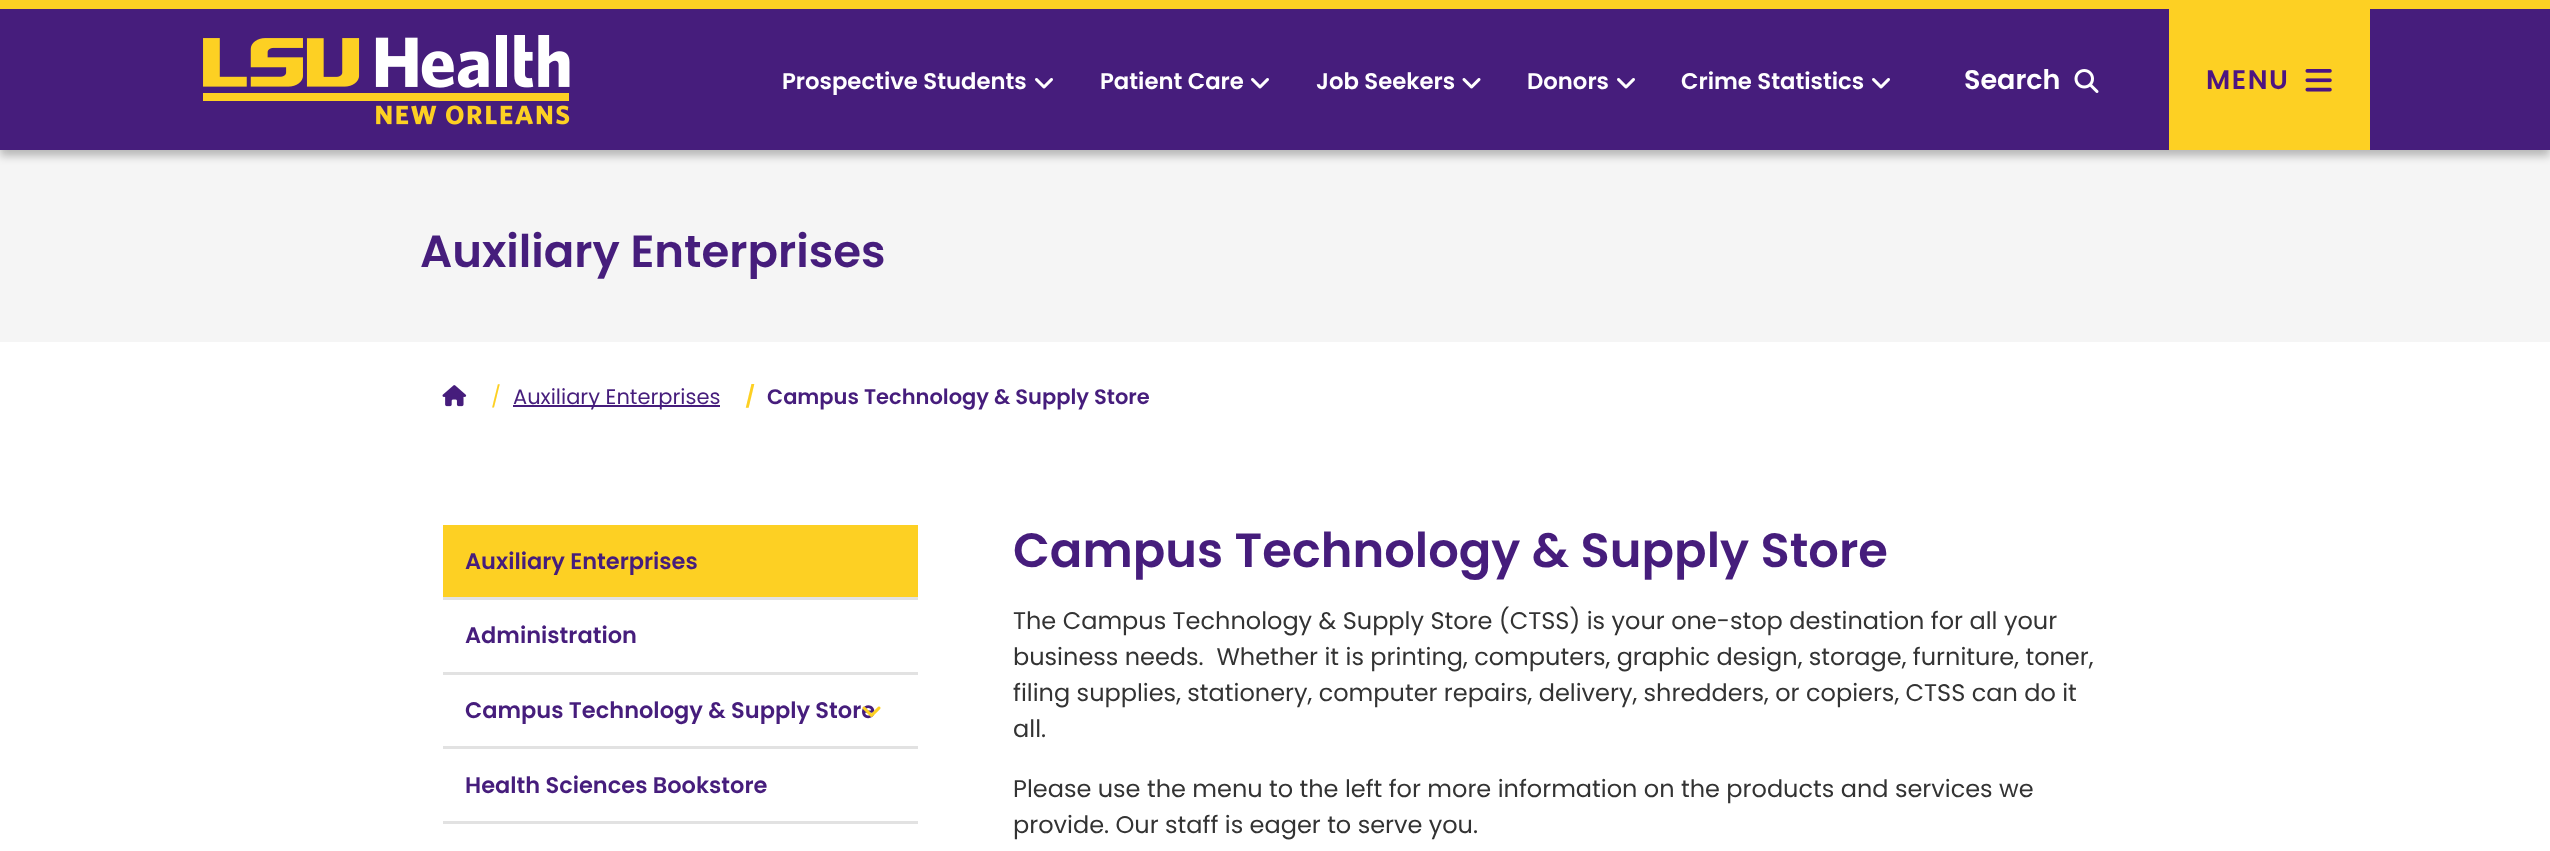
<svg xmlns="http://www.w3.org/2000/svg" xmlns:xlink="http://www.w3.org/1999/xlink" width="2550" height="851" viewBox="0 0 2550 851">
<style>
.cls-1{font:600 22.75px Poppins;fill:#ffffff}
.cls-2{font:600 27px Poppins;fill:#ffffff}
.cls-3{font:600 27px Poppins;letter-spacing:1.5px;fill:#4d1481}
.cls-4{font:600 45px Poppins;fill:#461d7c}
.cls-5{font:21px Poppins;fill:#fdd023}
.cls-6{font:21px Poppins;fill:#461d7c}
.cls-7{font:600 21px Poppins;fill:#fdd023}
.cls-8{font:600 21px Poppins;fill:#461d7c}
.cls-9{font:600 22.5px Poppins;fill:#461d7c}
.cls-10{font:600 48px Poppins;fill:#461d7c}
.cls-11{font:24px Poppins;fill:#333333}
</style>
<rect width="100%" height="100%" fill="#ffffff"/>
<rect fill="#f5f5f5" x="0" y="150" width="2550" height="192"/>
<rect fill="#000000" fill-opacity="0.25" filter="blur(4px)" x="0" y="6" width="2550" height="150"/>
<rect fill="#461d7c" x="0" y="9" width="2550" height="141"/>
<rect fill="#fdd023" x="0" y="0" width="2550" height="9"/>
<image xlink:href="image0.png" x="203" y="35" width="367" height="90"/>
<image xlink:href="image1.png" x="1035" y="78" width="18" height="11"/>
<image xlink:href="image1.png" x="1251" y="78" width="18" height="11"/>
<image xlink:href="image2.png" x="1462" y="78" width="19" height="11"/>
<image xlink:href="image1.png" x="1617" y="78" width="18" height="11"/>
<image xlink:href="image1.png" x="1872" y="78" width="18" height="11"/>
<image xlink:href="image3.png" x="2074" y="69" width="25" height="24"/>
<rect fill="#fdd023" x="2169" y="9" width="201" height="141"/>
<image xlink:href="image4.png" x="2305" y="69" width="27" height="23"/>
<image xlink:href="image5.png" x="442" y="385" width="25" height="22"/>
<rect fill="#461d7c" x="513" y="405" width="207" height="2"/>
<rect fill="#fdd023" x="443" y="525" width="475" height="72"/>
<rect fill="#e2e2e2" x="443" y="597" width="475" height="3"/>
<rect fill="#e2e2e2" x="443" y="672" width="475" height="3"/>
<rect fill="#e2e2e2" x="443" y="746" width="475" height="3"/>
<rect fill="#e2e2e2" x="443" y="821" width="475" height="3"/>
<text class="cls-1" x="782" y="89">Prospective Students</text>
<text class="cls-1" x="1100" y="89">Patient Care</text>
<text class="cls-1" x="1316" y="89">Job Seekers</text>
<text class="cls-1" x="1527" y="89">Donors</text>
<text class="cls-1" x="1681" y="89">Crime Statistics</text>
<text class="cls-2" x="1964" y="89">Search</text>
<text class="cls-3" x="2206" y="89">MENU</text>
<text class="cls-4" x="420" y="267">Auxiliary Enterprises</text>
<text class="cls-5" x="491" y="404">/</text>
<text class="cls-6" x="513" y="404">Auxiliary Enterprises</text>
<text class="cls-7" x="745" y="404">/</text>
<text class="cls-8" x="767" y="404">Campus Technology &amp; Supply Store</text>
<text class="cls-9" x="465" y="569">Auxiliary Enterprises</text>
<text class="cls-9" x="465" y="643">Administration</text>
<text class="cls-9" x="465" y="718">Campus Technology &amp; Supply Store</text>
<image xlink:href="image6.png" x="862" y="706" width="19" height="11"/>
<text class="cls-9" x="465" y="793">Health Sciences Bookstore</text>
<text class="cls-10" x="1013" y="567">Campus Technology &amp; Supply Store</text>
<text class="cls-11" xml:space="preserve"><tspan x="1013" y="629">The Campus Technology &amp; Supply Store (CTSS) is your one-stop destination for all your</tspan><tspan x="1013" y="665">business needs.  Whether it is printing, computers, graphic design, storage, furniture, toner,</tspan><tspan x="1013" y="701">filing supplies, stationery, computer repairs, delivery, shredders, or copiers, CTSS can do it</tspan><tspan x="1013" y="737">all.</tspan></text>
<text class="cls-11"><tspan x="1013" y="797">Please use the menu to the left for more information on the products and services we</tspan><tspan x="1013" y="833">provide. Our staff is eager to serve you.</tspan></text>
</svg>
